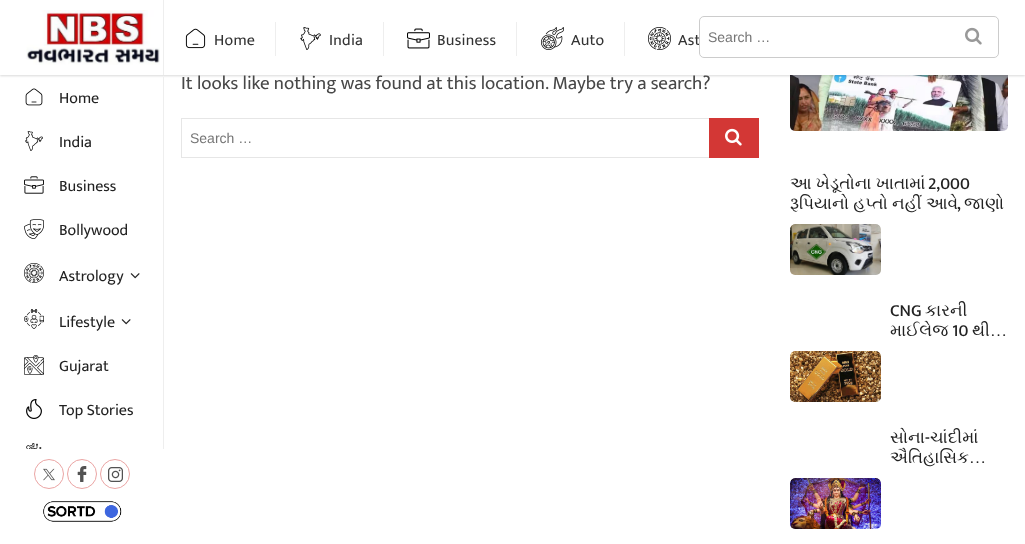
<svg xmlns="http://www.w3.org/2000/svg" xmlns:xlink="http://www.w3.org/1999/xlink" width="1025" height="544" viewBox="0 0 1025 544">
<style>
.cls-1{font:16px Mukta;letter-spacing:0.25px;fill:#333333}
.cls-2{font:14px Liberation Sans;fill:#757575}
.cls-3{font:16px Mukta;fill:#222222}
.cls-4{font:19px Mukta;fill:#484848}
.cls-5{font:17px FreeSerif;fill:#222222}
.cls-6{font:500 17px Mukta;fill:#222222}
</style>
<defs>
<clipPath id="clip1"><rect x="890" y="423" width="118" height="45"/></clipPath>
</defs>
<rect width="100%" height="100%" fill="#ffffff"/>
<image xlink:href="image22.png" x="790" y="75" width="218" height="56"/>
<rect fill="#000000" fill-opacity="0.15" filter="blur(1px)" x="0" y="1" width="1025" height="75"/>
<rect fill="#ffffff" x="0" y="0" width="1025" height="75"/>
<rect fill="#eeeeee" x="163" y="0" width="1" height="75"/>
<image xlink:href="image0.png" x="26" y="10" width="134" height="55"/>
<rect fill="#eeeeee" x="275" y="22" width="1" height="34"/>
<image xlink:href="image1.png" x="185" y="28" width="21" height="21"/>
<rect fill="#eeeeee" x="383" y="22" width="1" height="34"/>
<image xlink:href="image2.png" x="300" y="27" width="21" height="23"/>
<rect fill="#eeeeee" x="516" y="22" width="1" height="34"/>
<image xlink:href="image3.png" x="407" y="28" width="23" height="21"/>
<rect fill="#eeeeee" x="624" y="22" width="1" height="34"/>
<image xlink:href="image4.png" x="541" y="27" width="23" height="23"/>
<image xlink:href="image5.png" x="648" y="27" width="23" height="23"/>
<rect fill="#eeeeee" x="163" y="77" width="1" height="374"/>
<image xlink:href="image7.png" x="25" y="88" width="18" height="18"/>
<image xlink:href="image8.png" x="25" y="131" width="18" height="20"/>
<image xlink:href="image9.png" x="24" y="176" width="20" height="18"/>
<image xlink:href="image10.png" x="24" y="219" width="20" height="20"/>
<image xlink:href="image11.png" x="24" y="263" width="20" height="20"/>
<image xlink:href="image12.png" x="130" y="273" width="10" height="6"/>
<image xlink:href="image13.png" x="24" y="309" width="20" height="20"/>
<image xlink:href="image12.png" x="121" y="319" width="10" height="6"/>
<image xlink:href="image14.png" x="24" y="355" width="20" height="20"/>
<image xlink:href="image15.png" x="26" y="399" width="16" height="20"/>
<image xlink:href="image16.png" x="26" y="443" width="16" height="6"/>
<rect fill="#ffffff" x="163" y="449" width="1" height="2"/>
<circle fill="none" stroke="#eba5a4" cx="49" cy="474" r="14.5"/>
<image xlink:href="image17.png" x="43" y="468" width="12" height="13"/>
<circle fill="none" stroke="#eba5a4" cx="82" cy="474" r="14.5"/>
<image xlink:href="image18.png" x="77" y="466" width="10" height="16"/>
<circle fill="none" stroke="#eba5a4" cx="115" cy="474" r="14.5"/>
<image xlink:href="image19.png" x="108" y="467" width="15" height="15"/>
<image xlink:href="image20.png" x="43" y="501" width="79" height="21"/>
<rect fill="none" stroke="#e6e6e6" x="181.5" y="118.5" width="528" height="39"/>
<rect fill="#d33735" x="709" y="118" width="50" height="40"/>
<image xlink:href="image21.png" x="725" y="128" width="17" height="18"/>
<image xlink:href="image23.png" x="790" y="224" width="91" height="51"/>
<image xlink:href="image24.png" x="790" y="351" width="91" height="51"/>
<image xlink:href="image25.png" x="790" y="478" width="91" height="51"/>
<text class="cls-1" x="214" y="45">Home</text>
<text class="cls-1" x="329" y="45">India</text>
<text class="cls-1" x="437" y="45">Business</text>
<text class="cls-1" x="571" y="45">Auto</text>
<text class="cls-1" x="678" y="45">Ast</text>
<rect fill="#ffffff" stroke="#cccccc" x="699.5" y="16.5" width="299" height="41" rx="4.5"/>
<text class="cls-2" x="708" y="42">Search …</text>
<image xlink:href="image6.png" x="965" y="27" width="17" height="18"/>
<text class="cls-3" x="59" y="103">Home</text>
<text class="cls-3" x="59" y="147">India</text>
<text class="cls-3" x="59" y="191">Business</text>
<text class="cls-3" x="59" y="235">Bollywood</text>
<text class="cls-3" x="59" y="281">Astrology</text>
<text class="cls-3" x="59" y="327">Lifestyle</text>
<text class="cls-3" x="59" y="371">Gujarat</text>
<text class="cls-3" x="59" y="415">Top Stories</text>
<text class="cls-4" x="181" y="89">It looks like nothing was found at this location. Maybe try a search?</text>
<text class="cls-2" x="190" y="143">Search …</text>
<text class="cls-5" x="790" y="189">આ ખેડૂતોના ખાતામાં</text>
<text class="cls-6" x="928" y="189">2,000</text>
<text class="cls-5" x="790" y="209">રૂપિયાનો હપ્તો નહીં આવે</text>
<text class="cls-6" x="957" y="209">,</text>
<text class="cls-5" x="964" y="209">જાણો</text>
<text class="cls-6" x="890" y="316">CNG</text>
<text class="cls-5" x="925" y="316">કારની</text>
<text class="cls-5" x="890" y="336">માઈલેજ</text>
<text class="cls-6" x="952" y="336">10</text>
<text class="cls-5" x="972" y="336">થી…</text>
<g clip-path="url(#clip1)">
<text class="cls-5" x="890" y="443">સોના</text>
</g>
<text class="cls-6" x="925" y="443">-</text>
<text class="cls-5" x="930" y="443">ચાંદીમાં</text>
<text class="cls-5" x="890" y="463">ઐતિહાસિક…</text>
</svg>
